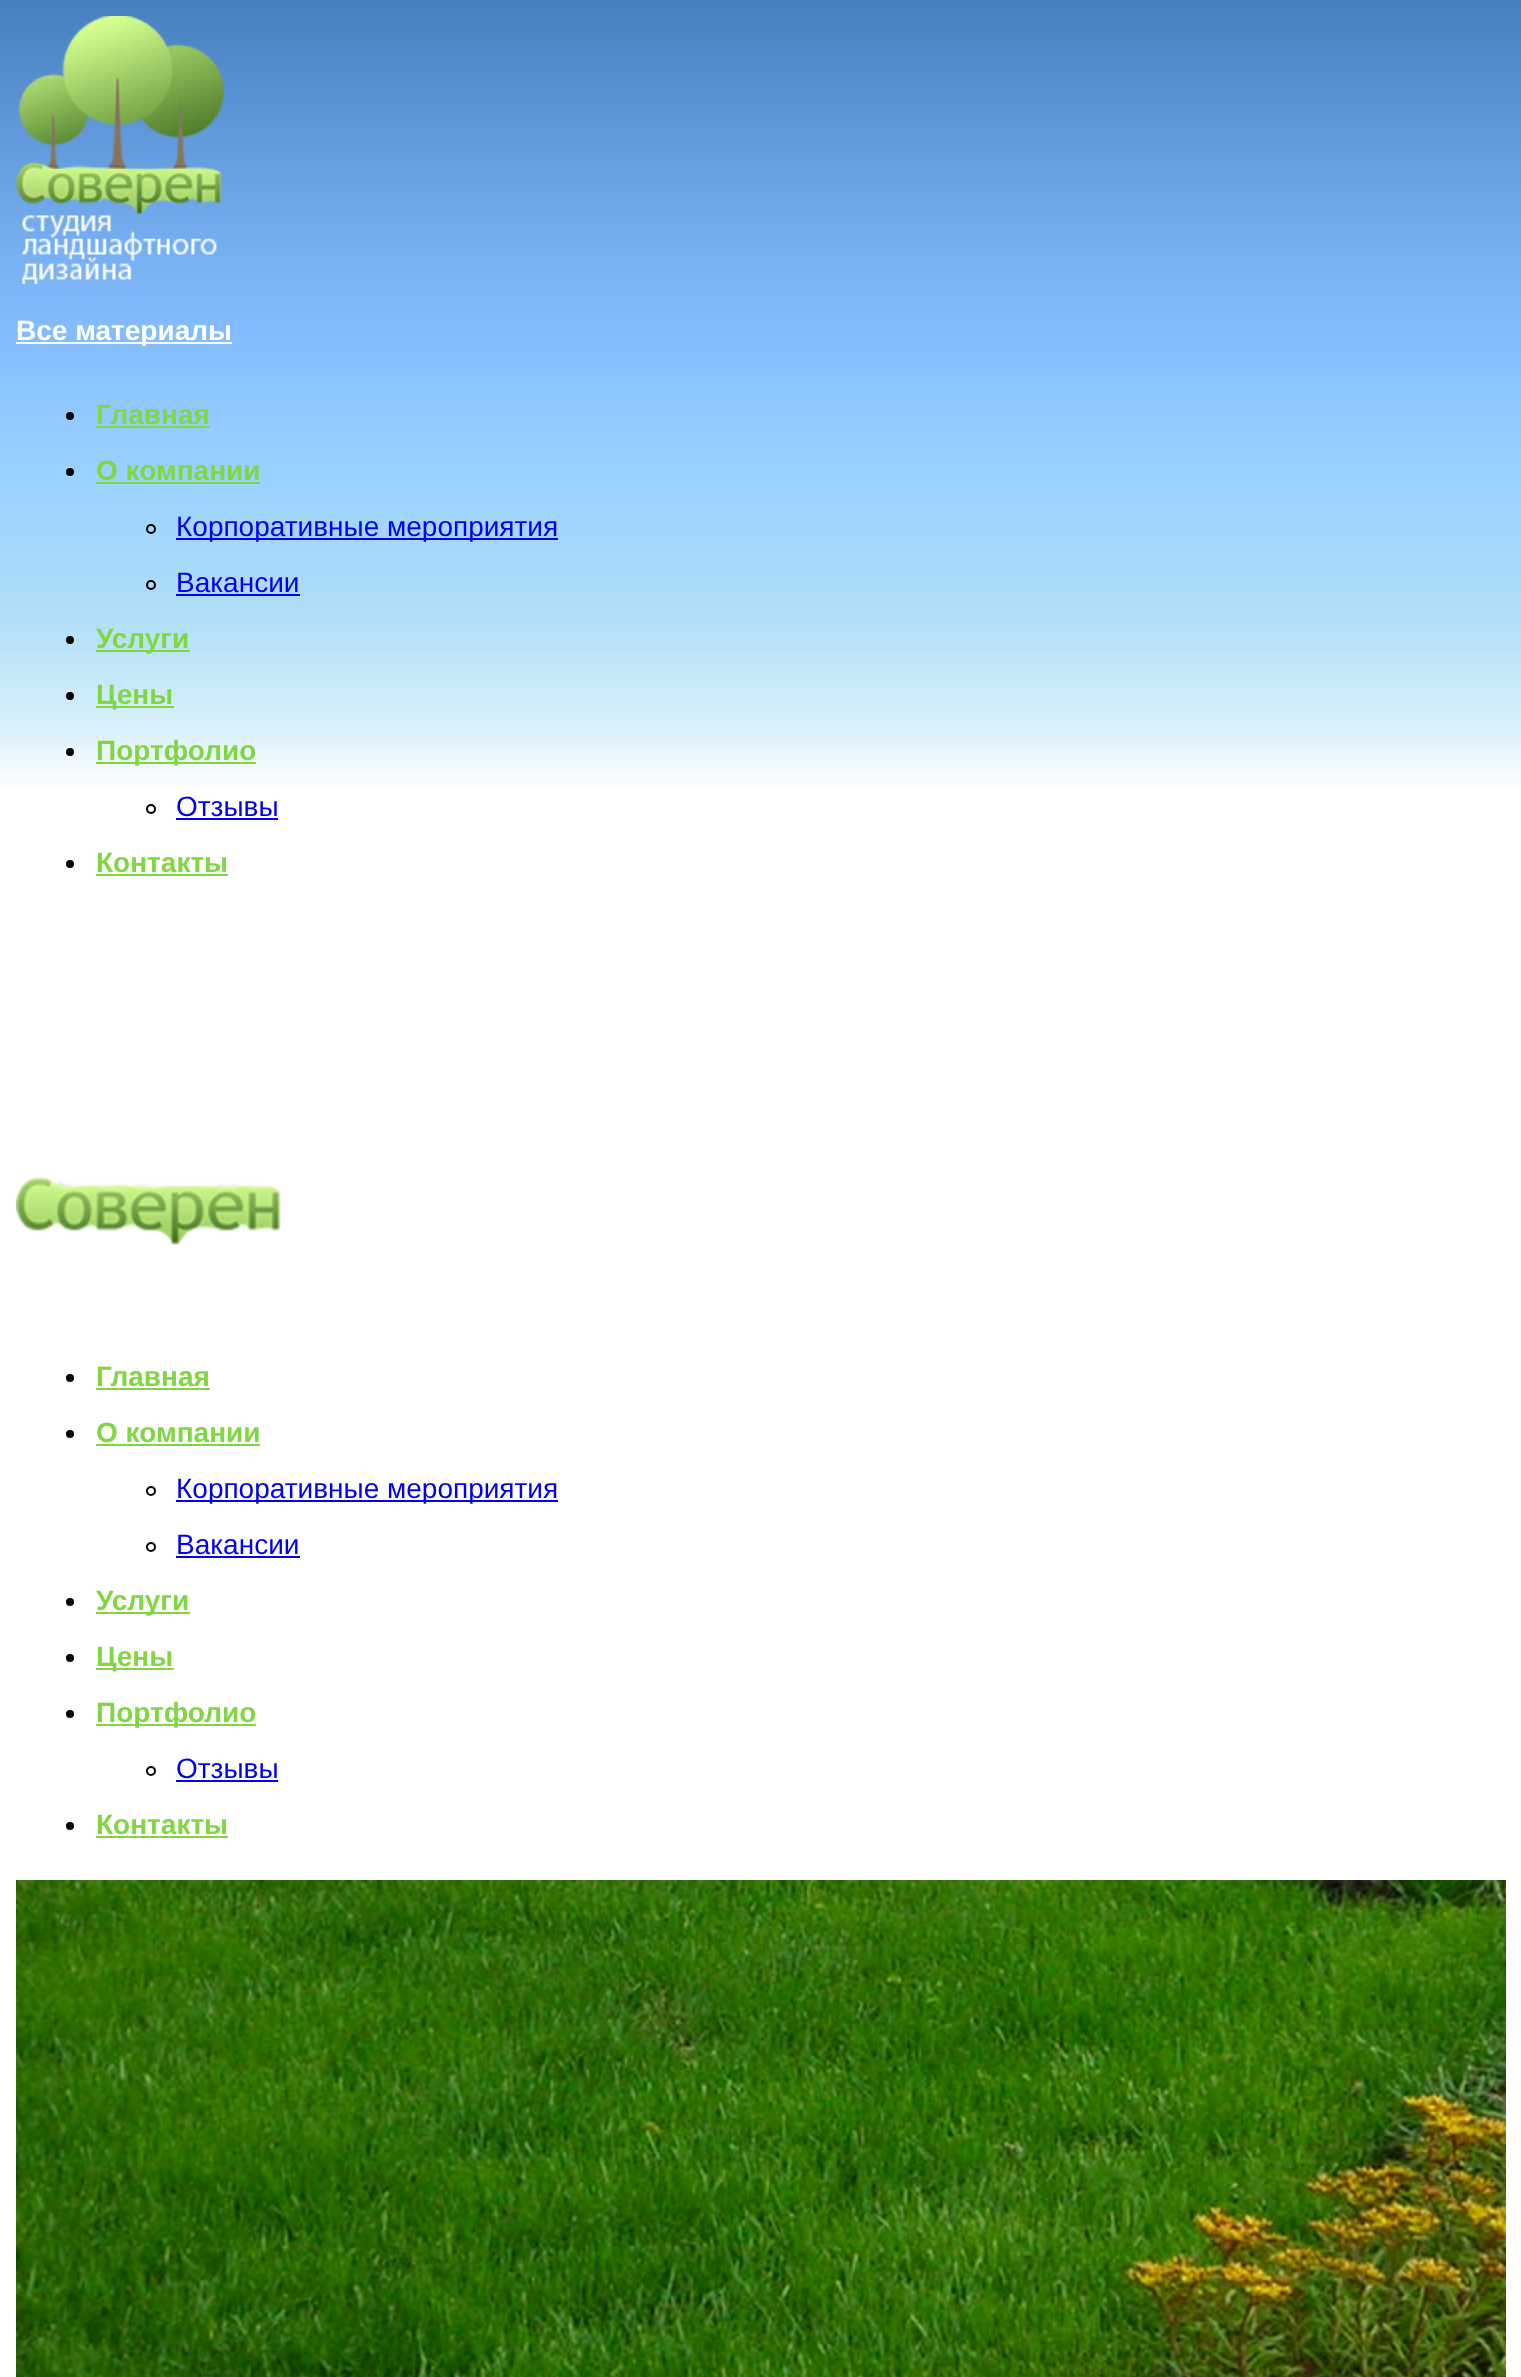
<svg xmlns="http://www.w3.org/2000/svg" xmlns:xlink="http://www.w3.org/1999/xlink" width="1521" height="2377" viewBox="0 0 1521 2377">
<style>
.cls-1{font:bold 28px Liberation Sans;fill:#ffffff}
.cls-2{font:bold 28px Liberation Sans;fill:#81d742}
.cls-3{font:28px Liberation Sans;fill:#0000ee}
</style>
<rect width="100%" height="100%" fill="#ffffff"/>
<image xlink:href="image0.png" x="0" y="0" width="1521" height="786"/>
<image xlink:href="image1.png" x="16" y="16" width="208" height="268"/>
<rect fill="#ffffff" x="16" y="342" width="216" height="2"/>
<circle fill="#000000" cx="70" cy="416" r="4"/>
<rect fill="#81d742" x="96" y="426" width="114" height="2"/>
<circle fill="#000000" cx="70" cy="472" r="4"/>
<rect fill="#81d742" x="96" y="482" width="164" height="2"/>
<circle fill="none" stroke="#000000" stroke-width="2" cx="151" cy="529" r="4"/>
<rect fill="#0000ee" x="176" y="538" width="382" height="2"/>
<circle fill="none" stroke="#000000" stroke-width="2" cx="151" cy="585" r="4"/>
<rect fill="#0000ee" x="176" y="594" width="124" height="2"/>
<circle fill="#000000" cx="70" cy="640" r="4"/>
<rect fill="#81d742" x="96" y="650" width="94" height="2"/>
<circle fill="#000000" cx="70" cy="696" r="4"/>
<rect fill="#81d742" x="96" y="706" width="78" height="2"/>
<circle fill="#000000" cx="70" cy="752" r="4"/>
<rect fill="#81d742" x="96" y="762" width="160" height="2"/>
<circle fill="none" stroke="#000000" stroke-width="2" cx="151" cy="809" r="4"/>
<rect fill="#0000ee" x="176" y="818" width="102" height="2"/>
<circle fill="#000000" cx="70" cy="864" r="4"/>
<rect fill="#81d742" x="96" y="874" width="132" height="2"/>
<image xlink:href="image2.png" x="16" y="1176" width="265" height="69"/>
<circle fill="#000000" cx="70" cy="1378" r="4"/>
<rect fill="#81d742" x="96" y="1388" width="114" height="2"/>
<circle fill="#000000" cx="70" cy="1434" r="4"/>
<rect fill="#81d742" x="96" y="1444" width="164" height="2"/>
<circle fill="none" stroke="#000000" stroke-width="2" cx="151" cy="1491" r="4"/>
<rect fill="#0000ee" x="176" y="1500" width="382" height="2"/>
<circle fill="none" stroke="#000000" stroke-width="2" cx="151" cy="1547" r="4"/>
<rect fill="#0000ee" x="176" y="1556" width="124" height="2"/>
<circle fill="#000000" cx="70" cy="1602" r="4"/>
<rect fill="#81d742" x="96" y="1612" width="94" height="2"/>
<circle fill="#000000" cx="70" cy="1658" r="4"/>
<rect fill="#81d742" x="96" y="1668" width="78" height="2"/>
<circle fill="#000000" cx="70" cy="1714" r="4"/>
<rect fill="#81d742" x="96" y="1724" width="160" height="2"/>
<circle fill="none" stroke="#000000" stroke-width="2" cx="151" cy="1771" r="4"/>
<rect fill="#0000ee" x="176" y="1780" width="102" height="2"/>
<circle fill="#000000" cx="70" cy="1826" r="4"/>
<rect fill="#81d742" x="96" y="1836" width="132" height="2"/>
<image xlink:href="image3.png" x="16" y="1880" width="1490" height="497"/>
<text class="cls-1" x="16" y="340">Все материалы</text>
<text class="cls-2" x="96" y="424">Главная</text>
<text class="cls-2" x="96" y="480">О компании</text>
<text class="cls-3" x="176" y="536">Корпоративные мероприятия</text>
<text class="cls-3" x="176" y="592">Вакансии</text>
<text class="cls-2" x="96" y="648">Услуги</text>
<text class="cls-2" x="96" y="704">Цены</text>
<text class="cls-2" x="96" y="760">Портфолио</text>
<text class="cls-3" x="176" y="816">Отзывы</text>
<text class="cls-2" x="96" y="872">Контакты</text>
<text class="cls-2" x="96" y="1386">Главная</text>
<text class="cls-2" x="96" y="1442">О компании</text>
<text class="cls-3" x="176" y="1498">Корпоративные мероприятия</text>
<text class="cls-3" x="176" y="1554">Вакансии</text>
<text class="cls-2" x="96" y="1610">Услуги</text>
<text class="cls-2" x="96" y="1666">Цены</text>
<text class="cls-2" x="96" y="1722">Портфолио</text>
<text class="cls-3" x="176" y="1778">Отзывы</text>
<text class="cls-2" x="96" y="1834">Контакты</text>
</svg>
